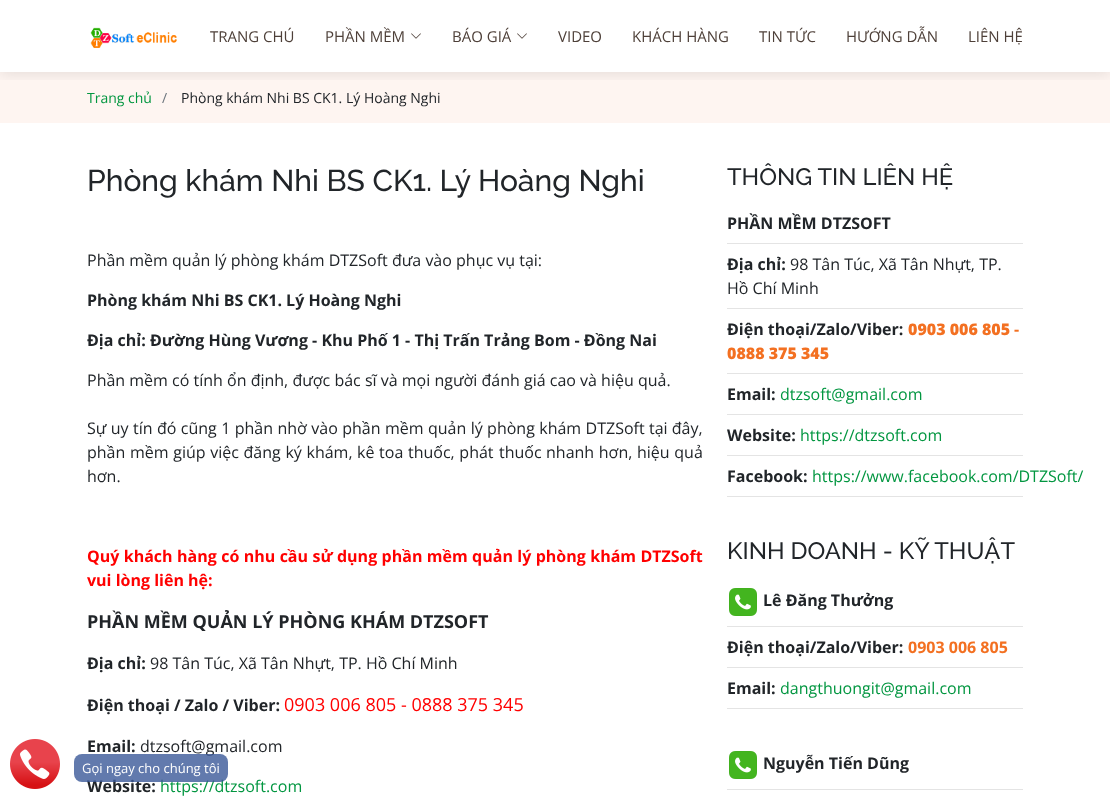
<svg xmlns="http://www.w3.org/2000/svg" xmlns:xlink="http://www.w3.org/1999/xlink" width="1110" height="809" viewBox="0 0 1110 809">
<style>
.cls-1{font:15px Open Sans;fill:#4e4039}
.cls-2{font:14px Open Sans;fill:#029640}
.cls-3{font:14px Open Sans;fill:#6c757d}
.cls-4{font:14px Open Sans;fill:#212529}
.cls-5{font:500 30px Raleway;fill:#212529}
.cls-6{font:16px Open Sans;fill:#212529}
.cls-7{font:bold 16px Open Sans;fill:#212529}
.cls-8{font:bold 16px Open Sans;fill:#ff0000}
.cls-9{font:bold 18px Open Sans;fill:#212529}
.cls-10{font:18px Open Sans;fill:#ff0000}
.cls-11{font:16px Open Sans;fill:#029640}
.cls-12{font:500 23.75px Raleway;fill:#212529}
.cls-13{font:800 16px Open Sans;fill:#f37021}
.cls-14{font:bold 16px Open Sans;fill:#f37021}
.cls-15{font:13px Open Sans;fill:#ffffff}
</style>
<defs>
<clipPath id="clip1"><rect x="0" y="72" width="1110" height="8"/></clipPath>
</defs>
<rect width="100%" height="100%" fill="#ffffff"/>
<rect fill="#fef5f1" x="0" y="72" width="1110" height="51"/>
<g clip-path="url(#clip1)">
<rect fill="#000000" fill-opacity="0.1" filter="blur(7.5px)" x="0" y="2" width="1110" height="72"/>
</g>
<image xlink:href="image0.png" x="90" y="27" width="87" height="21"/>
<image xlink:href="image1.png" x="411" y="33" width="10" height="6"/>
<image xlink:href="image1.png" x="517" y="33" width="10" height="6"/>
<rect fill="#e4e4e4" x="727" y="243" width="296" height="1"/>
<rect fill="#e4e4e4" x="727" y="308" width="296" height="1"/>
<rect fill="#e4e4e4" x="727" y="373" width="296" height="1"/>
<rect fill="#e4e4e4" x="727" y="414" width="296" height="1"/>
<rect fill="#e4e4e4" x="727" y="455" width="296" height="1"/>
<rect fill="#e4e4e4" x="727" y="496" width="296" height="1"/>
<rect fill="#e4e4e4" x="727" y="626" width="296" height="1"/>
<image xlink:href="image2.png" x="729" y="588" width="28" height="28"/>
<rect fill="#e4e4e4" x="727" y="667" width="296" height="1"/>
<rect fill="#e4e4e4" x="727" y="708" width="296" height="1"/>
<rect fill="#e4e4e4" x="727" y="789" width="296" height="1"/>
<image xlink:href="image2.png" x="729" y="751" width="28" height="28"/>
<image xlink:href="image3.png" x="10" y="739" width="50" height="50"/>
<text class="cls-1" x="210" y="42">TRANG CHÚ</text>
<text class="cls-1" x="325" y="42">PHẦN MỀM</text>
<text class="cls-1" x="452" y="42">BÁO GIÁ</text>
<text class="cls-1" x="558" y="42">VIDEO</text>
<text class="cls-1" x="632" y="42">KHÁCH HÀNG</text>
<text class="cls-1" x="759" y="42">TIN TỨC</text>
<text class="cls-1" x="846" y="42">HƯỚNG DẪN</text>
<text class="cls-1" x="968" y="42">LIÊN HỆ</text>
<text class="cls-2" x="87" y="103">Trang chủ</text>
<text class="cls-3" x="162" y="103">/</text>
<text class="cls-4" x="181" y="103">Phòng khám Nhi BS CK1. Lý Hoàng Nghi</text>
<text class="cls-5" x="87" y="191">Phòng khám Nhi BS CK1. Lý Hoàng Nghi</text>
<text class="cls-6" x="87" y="266">Phần mềm quản lý phòng khám DTZSoft đưa vào phục vụ tại:</text>
<text class="cls-7" x="87" y="306">Phòng khám Nhi BS CK1. Lý Hoàng Nghi</text>
<text class="cls-7" x="87" y="346">Địa chỉ: Đường Hùng Vương - Khu Phố 1 - Thị Trấn Trảng Bom - Đồng Nai</text>
<text class="cls-6" x="87" y="386">Phần mềm có tính ổn định, được bác sĩ và mọi người đánh giá cao và hiệu quả.</text>
<text class="cls-6" x="87" y="434" word-spacing="0.25">Sự uy tín đó cũng 1 phần nhờ vào phần mềm quản lý phòng khám DTZSoft</text>
<text class="cls-6" x="649" y="434">tại đây,</text>
<text class="cls-6" x="87" y="458" word-spacing="0.5">phần mềm giúp việc đăng ký khám,</text>
<text class="cls-6" x="357" y="458" word-spacing="0.5">kê toa thuốc, phát</text>
<text class="cls-6" x="499" y="458">thuốc</text>
<text class="cls-6" x="546" y="458" word-spacing="0.5">nhanh hơn, hiệu quả</text>
<text class="cls-6" x="87" y="482">hơn.</text>
<text class="cls-8"><tspan x="87" y="562" word-spacing="0.25">Quý khách hàng có nhu cầu sử dụng phần mềm quản lý phòng khám DTZSoft</tspan><tspan x="87" y="586">vui lòng liên hệ:</tspan></text>
<text class="cls-9" x="87" y="628">PHẦN MỀM QUẢN LÝ PHÒNG KHÁM DTZSOFT</text>
<text class="cls-7" x="87" y="669">Địa chỉ:</text>
<text class="cls-6" x="150" y="669">98 Tân Túc, Xã Tân Nhựt, TP. Hồ Chí Minh</text>
<text class="cls-7" x="87" y="711">Điện thoại / Zalo / Viber:</text>
<text class="cls-10" x="284" y="711">0903 006 805 - 0888 375 345</text>
<text class="cls-7" x="87" y="752">Email:</text>
<text class="cls-6" x="140" y="752">dtzsoft@gmail.com</text>
<text class="cls-7" x="87" y="792">Website:</text>
<text class="cls-11" x="160" y="792">https://dtzsoft.com</text>
<text class="cls-12" x="727" y="185">THÔNG TIN LIÊN HỆ</text>
<text class="cls-7" x="727" y="229">PHẦN MỀM DTZSOFT</text>
<text class="cls-7" x="727" y="270">Địa chỉ:</text>
<text class="cls-6" x="790" y="270">98 Tân Túc, Xã Tân Nhựt, TP.</text>
<text class="cls-6" x="727" y="294">Hồ Chí Minh</text>
<text class="cls-7" x="727" y="335">Điện thoại/Zalo/Viber:</text>
<text class="cls-13" x="908" y="335">0903 006 805</text>
<text class="cls-14" x="1014" y="335">-</text>
<text class="cls-13" x="727" y="359">0888 375 345</text>
<text class="cls-7" x="727" y="400">Email:</text>
<text class="cls-11" x="780" y="400">dtzsoft@gmail.com</text>
<text class="cls-7" x="727" y="441">Website:</text>
<text class="cls-11" x="800" y="441">https://dtzsoft.com</text>
<text class="cls-7" x="727" y="482">Facebook:</text>
<text class="cls-11" x="812" y="482">https://www.facebook.com/DTZSoft/</text>
<text class="cls-12" x="727" y="559">KINH DOANH - KỸ THUẬT</text>
<text class="cls-7" x="763" y="606">Lê Đăng Thưởng</text>
<text class="cls-7" x="727" y="653">Điện thoại/Zalo/Viber:</text>
<text class="cls-14" x="908" y="653">0903 006 805</text>
<text class="cls-7" x="727" y="694">Email:</text>
<text class="cls-11" x="780" y="694">dangthuongit@gmail.com</text>
<text class="cls-7" x="763" y="769">Nguyễn Tiến Dũng</text>
<rect fill="#3b5998" fill-opacity="0.8" x="74" y="754" width="154" height="28" rx="8"/>
<text class="cls-15" x="82" y="773">Gọi ngay cho chúng tôi</text>
</svg>
